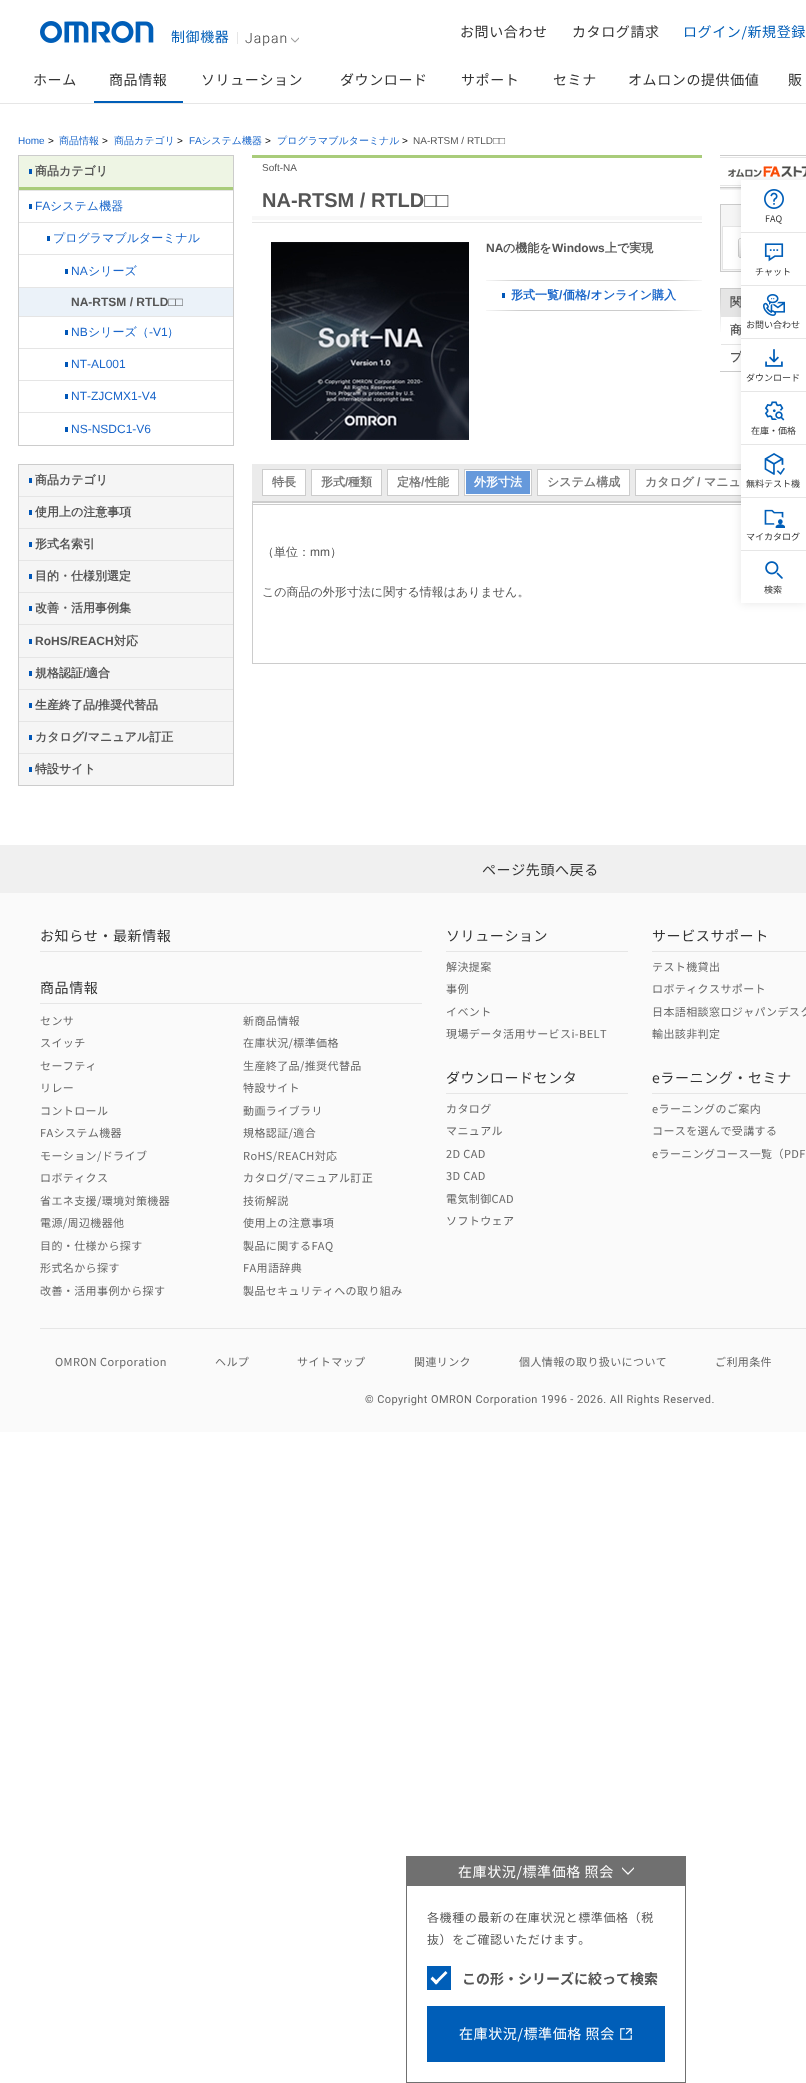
<svg xmlns="http://www.w3.org/2000/svg" xmlns:xlink="http://www.w3.org/1999/xlink" width="806" height="2083" viewBox="0 0 806 2083">
<style>*{font-kerning:none!important;font-variant-ligatures:none!important}</style>
<style>
.cls-1{font:14px Noto Sans JP;letter-spacing:0.6px;fill:#333333}
.cls-2{font:14px Noto Sans JP;letter-spacing:0.6px;fill:#005eb8}
.cls-3{font:300 14px Roboto;letter-spacing:1px;fill:#333333}
.cls-4{font:10px Liberation Sans;fill:#1a66ca}
.cls-5{font:10px Liberation Sans;fill:#000000}
.cls-6{font:500 10px WenQuanYi Zen Hei;fill:#1a66ca}
.cls-7{font:10px Liberation Sans;fill:#555555}
.cls-8{font:bold 12px WenQuanYi Zen Hei;fill:#555555}
.cls-9{font:12px Liberation Sans;fill:#1a66ca}
.cls-10{font:500 12px WenQuanYi Zen Hei;fill:#1a66ca}
.cls-11{font:bold 12px Liberation Sans;fill:#555555}
.cls-12{font:bold 20px Liberation Sans;fill:#555555}
.cls-13{font:bold 12px WenQuanYi Zen Hei;fill:#1a66ca}
.cls-14{font:bold 12px Liberation Sans;fill:#1a66ca}
.cls-15{font:bold 12px WenQuanYi Zen Hei;fill:#787878}
.cls-16{font:bold 12px Liberation Sans;fill:#787878}
.cls-17{font:bold 12px WenQuanYi Zen Hei;fill:#ffffff}
.cls-18{font:500 12px WenQuanYi Zen Hei;fill:#555555}
.cls-19{font:12px Liberation Sans;fill:#555555}
.cls-20{font:11px Noto Sans JP;letter-spacing:0.4px;fill:#666666}
.cls-21{font:11px Roboto;letter-spacing:0.4px;fill:#666666}
.cls-22{font:9px Noto Sans JP;fill:#333333}
.cls-23{font:14px Noto Sans JP;letter-spacing:0.6px;fill:#ffffff}
.cls-24{font:12px Noto Sans JP;letter-spacing:0.6px;fill:#555555}
.cls-25{font:bold 14px Noto Sans JP;fill:#555555}
</style>
<defs>
<clipPath id="clip1"><rect x="622" y="1865" width="12" height="12"/></clipPath>
</defs>
<rect width="100%" height="100%" fill="#ffffff"/>
<rect fill="#e6e6e6" x="0" y="103" width="806" height="1"/>
<rect fill="#005eb8" x="94" y="101" width="89" height="2"/>
<image xlink:href="image0.png" x="40" y="21" width="114" height="22"/>
<rect fill="#e6e6e6" x="237" y="32" width="1" height="12"/>
<image xlink:href="image1.png" x="291" y="37" width="8" height="6"/>
<rect fill="none" stroke="#cccccc" x="18.5" y="155.5" width="215" height="290"/>
<rect fill="#eef5e4" x="19" y="156" width="214" height="31"/>
<rect fill="#a9cc7a" x="19" y="187" width="214" height="3"/>
<rect fill="#0056b7" x="29" y="169" width="3" height="5"/>
<rect fill="#e5e5e5" x="19" y="190" width="214" height="1"/>
<rect fill="#0056b7" x="29" y="204" width="3" height="5"/>
<rect fill="#e5e5e5" x="19" y="222" width="214" height="1"/>
<rect fill="#0056b7" x="47" y="236" width="3" height="5"/>
<rect fill="#e5e5e5" x="19" y="254" width="214" height="1"/>
<rect fill="#0056b7" x="65" y="269" width="3" height="5"/>
<rect fill="#ebf2f9" x="19" y="288" width="214" height="28"/>
<rect fill="#e5e5e5" x="19" y="287" width="214" height="1"/>
<rect fill="#e5e5e5" x="19" y="316" width="214" height="1"/>
<rect fill="#0056b7" x="65" y="330" width="3" height="5"/>
<rect fill="#e5e5e5" x="19" y="348" width="214" height="1"/>
<rect fill="#0056b7" x="65" y="362" width="3" height="5"/>
<rect fill="#e5e5e5" x="19" y="380" width="214" height="1"/>
<rect fill="#0056b7" x="65" y="394" width="3" height="5"/>
<rect fill="#e5e5e5" x="19" y="412" width="214" height="1"/>
<rect fill="#0056b7" x="65" y="427" width="3" height="5"/>
<rect fill="#f5f5f5" stroke="#cccccc" x="18.5" y="464.5" width="215" height="321"/>
<rect fill="#0056b7" x="29" y="478" width="3" height="5"/>
<rect fill="#e5e5e5" x="19" y="496" width="214" height="1"/>
<rect fill="#0056b7" x="29" y="510" width="3" height="5"/>
<rect fill="#e5e5e5" x="19" y="528" width="214" height="1"/>
<rect fill="#0056b7" x="29" y="542" width="3" height="5"/>
<rect fill="#e5e5e5" x="19" y="560" width="214" height="1"/>
<rect fill="#0056b7" x="29" y="574" width="3" height="5"/>
<rect fill="#e5e5e5" x="19" y="592" width="214" height="1"/>
<rect fill="#0056b7" x="29" y="606" width="3" height="5"/>
<rect fill="#e5e5e5" x="19" y="624" width="214" height="1"/>
<rect fill="#0056b7" x="29" y="639" width="3" height="5"/>
<rect fill="#e5e5e5" x="19" y="657" width="214" height="1"/>
<rect fill="#0056b7" x="29" y="671" width="3" height="5"/>
<rect fill="#e5e5e5" x="19" y="689" width="214" height="1"/>
<rect fill="#0056b7" x="29" y="703" width="3" height="5"/>
<rect fill="#e5e5e5" x="19" y="721" width="214" height="1"/>
<rect fill="#0056b7" x="29" y="735" width="3" height="5"/>
<rect fill="#e5e5e5" x="19" y="753" width="214" height="1"/>
<rect fill="#0056b7" x="29" y="767" width="3" height="5"/>
<rect fill="#f8f8f8" x="252" y="216" width="450" height="4"/>
<rect fill="#a9cc7a" x="252" y="155" width="450" height="3"/>
<rect fill="#e5e5e5" x="252" y="222" width="450" height="1"/>
<image xlink:href="image2.png" x="271" y="242" width="198" height="198"/>
<image xlink:href="image3.png" x="486" y="280" width="216" height="1"/>
<image xlink:href="image3.png" x="486" y="310" width="216" height="1"/>
<rect fill="#0056b7" x="502" y="293" width="3" height="5"/>
<image xlink:href="image4.png" x="720" y="188" width="21" height="2"/>
<rect fill="#cccccc" x="720" y="155" width="86" height="1"/>
<rect fill="#cccccc" x="720" y="187" width="21" height="1"/>
<rect fill="#e5e5e5" x="720" y="157" width="86" height="1"/>
<rect fill="#e5e5e5" x="720" y="185" width="21" height="1"/>
<image xlink:href="image5.png" x="728" y="166" width="78" height="11"/>
<rect fill="#f5f5f5" x="721" y="205" width="20" height="66"/>
<rect fill="none" stroke="#cccccc" x="720.5" y="204.5" width="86" height="67"/>
<rect fill="#ffffff" x="723" y="227" width="18" height="42"/>
<rect fill="none" stroke="#e5e5e5" x="722.5" y="226.5" width="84" height="43"/>
<image xlink:href="image6.png" x="738" y="238" width="3" height="20"/>
<image xlink:href="image7.png" x="720" y="289" width="1" height="43"/>
<rect fill="#cccccc" x="720" y="288" width="21" height="1"/>
<rect fill="#cccccc" x="720" y="371" width="21" height="1"/>
<rect fill="#e5e5e5" x="721" y="289" width="20" height="28"/>
<rect fill="#e5e5e5" x="721" y="344" width="20" height="1"/>
<rect fill="#cccccc" x="252" y="501" width="489" height="163"/>
<rect fill="#ebebeb" x="252" y="464" width="489" height="37"/>
<rect fill="none" stroke="#cccccc" x="262.5" y="469.5" width="43" height="26"/>
<rect fill="#ffffff" x="263" y="470" width="42" height="25"/>
<rect fill="none" stroke="#cccccc" x="311.5" y="469.5" width="70" height="26"/>
<rect fill="#ffffff" x="312" y="470" width="69" height="25"/>
<rect fill="none" stroke="#cccccc" x="387.5" y="469.5" width="71" height="26"/>
<rect fill="#ffffff" x="388" y="470" width="70" height="25"/>
<rect fill="none" stroke="#cccccc" x="464.5" y="469.5" width="67" height="26"/>
<rect fill="#6699db" stroke="#ffffff" x="465.5" y="470.5" width="65" height="24"/>
<rect fill="none" stroke="#cccccc" x="537.5" y="469.5" width="92" height="26"/>
<rect fill="#ffffff" x="538" y="470" width="91" height="25"/>
<rect fill="none" stroke="#cccccc" x="635.5" y="469.5" width="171" height="26"/>
<rect fill="#ffffff" x="636" y="470" width="105" height="25"/>
<rect fill="#ffffff" x="253" y="503" width="488" height="160"/>
<rect fill="#cccccc" x="253" y="504" width="488" height="1"/>
<rect fill="#cccccc" x="741" y="663" width="65" height="1"/>
<rect fill="#fafafa" x="0" y="893" width="806" height="539"/>
<rect fill="#f0f0f0" x="0" y="845" width="806" height="48"/>
<rect fill="#e6e6e6" x="40" y="1328" width="766" height="1"/>
<rect fill="#e6e6e6" x="40" y="951" width="382" height="1"/>
<rect fill="#e6e6e6" x="40" y="1003" width="382" height="1"/>
<rect fill="#e6e6e6" x="446" y="951" width="182" height="1"/>
<rect fill="#e6e6e6" x="446" y="1093" width="182" height="1"/>
<rect fill="#e6e6e6" x="652" y="951" width="154" height="1"/>
<rect fill="#e6e6e6" x="652" y="1093" width="154" height="1"/>
<rect fill="#000000" fill-opacity="0.1" filter="blur(5px)" x="741" y="180" width="65" height="423"/>
<rect fill="#707070" x="406" y="1856" width="280" height="30"/>
<g clip-path="url(#clip1)">
<path fill="none" stroke="#ffffff" stroke-width="1.2" stroke-linecap="round" stroke-linejoin="round" d="M634 1868L628 1874L622 1868"/>
</g>
<rect fill="#707070" x="685" y="1886" width="1" height="197"/>
<rect fill="#707070" x="406" y="2082" width="280" height="1"/>
<rect fill="#707070" x="406" y="1886" width="1" height="197"/>
<rect fill="#005eb8" x="427" y="1966" width="24" height="24"/>
<path fill="#ffffff" d="M434 1982.5L445.5 1971L447.5 1973L436 1984.5Z"/>
<path fill="#ffffff" d="M430.5 1979L432.5 1976.5L438.5 1982.5L436 1984.5Z"/>
<rect fill="#005eb8" x="427" y="2006" width="238" height="56"/>
<image xlink:href="image16.png" x="620" y="2028" width="12" height="12"/>
<text class="cls-1" x="460" y="37">お問い合わせ</text>
<text class="cls-1" x="572" y="37">カタログ請求</text>
<text class="cls-2" x="683" y="37">ログイン/新規登録</text>
<text class="cls-1" x="33" y="85">ホーム</text>
<text class="cls-1" x="109" y="85">商品情報</text>
<text class="cls-1" x="201" y="85">ソリューション</text>
<text class="cls-1" x="340" y="85">ダウンロード</text>
<text class="cls-1" x="461" y="85">サポート</text>
<text class="cls-1" x="553" y="85">セミナ</text>
<text class="cls-1" x="628" y="85">オムロンの提供価値</text>
<text class="cls-1" x="788" y="85">販</text>
<text class="cls-2" x="171" y="42">制御機器</text>
<text class="cls-3" x="245" y="43">Japan</text>
<text class="cls-4" x="18" y="144">Home</text>
<text class="cls-5" x="48" y="144">&gt;</text>
<text class="cls-6" x="59" y="144">商品情報</text>
<text class="cls-5" x="102" y="144">&gt;</text>
<text class="cls-6" x="114" y="144">商品カテゴリ</text>
<text class="cls-5" x="177" y="144">&gt;</text>
<text class="cls-4" x="189" y="144">FA</text>
<text class="cls-6" x="201" y="144">システム機器</text>
<text class="cls-5" x="265" y="144">&gt;</text>
<text class="cls-6" x="277" y="144">プログラマブルターミナル</text>
<text class="cls-5" x="402" y="144">&gt;</text>
<text class="cls-7" x="413" y="144">NA-RTSM / RTLD□□</text>
<text class="cls-8" x="35" y="175">商品カテゴリ</text>
<text class="cls-9" x="35" y="210">FA</text>
<text class="cls-10" x="50" y="210">システム機器</text>
<text class="cls-10" x="53" y="242">プログラマブルターミナル</text>
<text class="cls-9" x="71" y="275">NA</text>
<text class="cls-10" x="88" y="275">シリーズ</text>
<text class="cls-11" x="71" y="306">NA-RTSM / RTLD□□</text>
<text class="cls-9" x="71" y="336">NB</text>
<text class="cls-10" x="88" y="336">シリーズ（</text>
<text class="cls-9" x="149" y="336">-V1</text>
<text class="cls-10" x="167" y="336">）</text>
<text class="cls-9" x="71" y="368">NT-AL001</text>
<text class="cls-9" x="71" y="400">NT-ZJCMX1-V4</text>
<text class="cls-9" x="71" y="433">NS-NSDC1-V6</text>
<text class="cls-8" x="35" y="484">商品カテゴリ</text>
<text class="cls-8" x="35" y="516">使用上の注意事項</text>
<text class="cls-8" x="35" y="548">形式名索引</text>
<text class="cls-8" x="35" y="580">目的・仕様別選定</text>
<text class="cls-8" x="35" y="612">改善・活用事例集</text>
<text class="cls-11" x="35" y="645">RoHS/REACH</text>
<text class="cls-8" x="114" y="645">対応</text>
<text class="cls-8" x="35" y="677">規格認証</text>
<text class="cls-11" x="83" y="677">/</text>
<text class="cls-8" x="86" y="677">適合</text>
<text class="cls-8" x="35" y="709">生産終了品</text>
<text class="cls-11" x="95" y="709">/</text>
<text class="cls-8" x="98" y="709">推奨代替品</text>
<text class="cls-8" x="35" y="741">カタログ マニュアル訂正</text>
<text class="cls-11" x="84" y="741">/</text>
<text class="cls-8" x="35" y="773">特設サイト</text>
<text class="cls-7" x="262" y="171">Soft-NA</text>
<text class="cls-12" x="262" y="207">NA-RTSM / RTLD□□</text>
<text class="cls-11" x="486" y="252">NA</text>
<text class="cls-8" x="503" y="252">の機能を</text>
<text class="cls-11" x="552" y="252">Windows</text>
<text class="cls-8" x="605" y="252">上で実現</text>
<text class="cls-13" x="511" y="299">形式一覧</text>
<text class="cls-14" x="559" y="299">/</text>
<text class="cls-13" x="563" y="299">価格 オンライン購入</text>
<text class="cls-14" x="587" y="299">/</text>
<text class="cls-8" x="730" y="306">関</text>
<text class="cls-8" x="730" y="334">商</text>
<text class="cls-8" x="730" y="361">プ</text>
<text class="cls-15" x="272" y="486">特長</text>
<text class="cls-15" x="321" y="486">形式</text>
<text class="cls-16" x="345" y="486">/</text>
<text class="cls-15" x="348" y="486">種類</text>
<text class="cls-15" x="397" y="486">定格</text>
<text class="cls-16" x="421" y="486">/</text>
<text class="cls-15" x="425" y="486">性能</text>
<text class="cls-17" x="474" y="486">外形寸法</text>
<text class="cls-15" x="547" y="486">システム構成</text>
<text class="cls-15" x="645" y="486">カタログ</text>
<text class="cls-16" x="697" y="486">/</text>
<text class="cls-15" x="704" y="486">マニュ</text>
<text class="cls-18" x="262" y="556">（単位：</text>
<text class="cls-19" x="310" y="556">mm</text>
<text class="cls-18" x="330" y="556">）</text>
<text class="cls-18" x="262" y="596">この商品の外形寸法に関する情報はありません。</text>
<text class="cls-1" x="482" y="875">ページ先頭へ戻る</text>
<text class="cls-1" x="40" y="941">お知らせ・最新情報</text>
<text class="cls-1" x="40" y="993">商品情報</text>
<text class="cls-20" x="40" y="1025">センサ</text>
<text class="cls-20" x="40" y="1047">スイッチ</text>
<text class="cls-20" x="40" y="1070">セーフティ</text>
<text class="cls-20" x="40" y="1092">リレー</text>
<text class="cls-20" x="40" y="1115">コントロール</text>
<text class="cls-20" x="40" y="1137">FAシステム機器</text>
<text class="cls-20" x="40" y="1160">モーション/ドライブ</text>
<text class="cls-20" x="40" y="1182">ロボティクス</text>
<text class="cls-20" x="40" y="1205">省エネ支援/環境対策機器</text>
<text class="cls-20" x="40" y="1227">電源/周辺機器他</text>
<text class="cls-20" x="40" y="1250">目的・仕様から探す</text>
<text class="cls-20" x="40" y="1272">形式名から探す</text>
<text class="cls-20" x="40" y="1295">改善・活用事例から探す</text>
<text class="cls-20" x="243" y="1025">新商品情報</text>
<text class="cls-20" x="243" y="1047">在庫状況/標準価格</text>
<text class="cls-20" x="243" y="1070">生産終了品/推奨代替品</text>
<text class="cls-20" x="243" y="1092">特設サイト</text>
<text class="cls-20" x="243" y="1115">動画ライブラリ</text>
<text class="cls-20" x="243" y="1137">規格認証/適合</text>
<text class="cls-20" x="243" y="1160">RoHS/REACH対応</text>
<text class="cls-20" x="243" y="1182">カタログ/マニュアル訂正</text>
<text class="cls-20" x="243" y="1205">技術解説</text>
<text class="cls-20" x="243" y="1227">使用上の注意事項</text>
<text class="cls-20" x="243" y="1250">製品に関するFAQ</text>
<text class="cls-20" x="243" y="1272">FA用語辞典</text>
<text class="cls-20" x="243" y="1295">製品セキュリティへの取り組み</text>
<text class="cls-1" x="446" y="941">ソリューション</text>
<text class="cls-20" x="446" y="971">解決提案</text>
<text class="cls-20" x="446" y="993">事例</text>
<text class="cls-20" x="446" y="1016">イベント</text>
<text class="cls-20" x="446" y="1038">現場データ活用サービスi-BELT</text>
<text class="cls-1" x="446" y="1083">ダウンロードセンタ</text>
<text class="cls-20" x="446" y="1113">カタログ</text>
<text class="cls-20" x="446" y="1135">マニュアル</text>
<text class="cls-20" x="446" y="1158">2D CAD</text>
<text class="cls-20" x="446" y="1180">3D CAD</text>
<text class="cls-20" x="446" y="1203">電気制御CAD</text>
<text class="cls-20" x="446" y="1225">ソフトウェア</text>
<text class="cls-1" x="652" y="941">サービスサポート</text>
<text class="cls-20" x="652" y="971">テスト機貸出</text>
<text class="cls-20" x="652" y="993">ロボティクスサポート</text>
<text class="cls-20" x="652" y="1016">日本語相談窓口ジャパンデスク</text>
<text class="cls-20" x="652" y="1038">輸出該非判定</text>
<text class="cls-1" x="652" y="1083">eラーニング・セミナ</text>
<text class="cls-20" x="652" y="1113">eラーニングのご案内</text>
<text class="cls-20" x="652" y="1135">コースを選んで受講する</text>
<text class="cls-20" x="652" y="1158">eラーニングコース一覧（PDF</text>
<text class="cls-20" x="55" y="1366">OMRON Corporation</text>
<text class="cls-20" x="215" y="1366">ヘルプ</text>
<text class="cls-20" x="297" y="1366">サイトマップ</text>
<text class="cls-20" x="414" y="1366">関連リンク</text>
<text class="cls-20" x="519" y="1366">個人情報の取り扱いについて</text>
<text class="cls-20" x="715" y="1366">ご利用条件</text>
<text class="cls-21" x="365" y="1403">© Copyright OMRON Corporation 1996 - 2026. All Rights Reserved.</text>
<rect fill="#ffffff" x="741" y="180" width="65" height="423"/>
<rect fill="#e6e6e6" x="741" y="232" width="65" height="1"/>
<image xlink:href="image8.png" x="764" y="189" width="20" height="20"/>
<text class="cls-22" x="765" y="222">FAQ</text>
<rect fill="#e6e6e6" x="741" y="285" width="65" height="1"/>
<image xlink:href="image9.png" x="764" y="243" width="20" height="19"/>
<text class="cls-22" x="755" y="275">チャット</text>
<rect fill="#e6e6e6" x="741" y="338" width="65" height="1"/>
<image xlink:href="image10.png" x="763" y="294" width="22" height="22"/>
<text class="cls-22" x="746" y="328">お問い合わせ</text>
<rect fill="#e6e6e6" x="741" y="391" width="65" height="1"/>
<image xlink:href="image11.png" x="765" y="349" width="18" height="18"/>
<text class="cls-22" x="746" y="381">ダウンロード</text>
<rect fill="#e6e6e6" x="741" y="444" width="65" height="1"/>
<image xlink:href="image12.png" x="764" y="401" width="21" height="20"/>
<text class="cls-22" x="751" y="434">在庫・価格</text>
<rect fill="#e6e6e6" x="741" y="497" width="65" height="1"/>
<image xlink:href="image13.png" x="764" y="453" width="21" height="22"/>
<text class="cls-22" x="746" y="487">無料テスト機</text>
<rect fill="#e6e6e6" x="741" y="550" width="65" height="1"/>
<image xlink:href="image14.png" x="764" y="509" width="21" height="19"/>
<text class="cls-22" x="746" y="540">マイカタログ</text>
<image xlink:href="image15.png" x="765" y="561" width="18" height="18"/>
<text class="cls-22" x="764" y="593">検索</text>
<text class="cls-23" x="458" y="1877">在庫状況/標準価格 照会</text>
<text class="cls-24"><tspan x="427" y="1922">各機種の最新の在庫状況と標準価格（税</tspan><tspan x="427" y="1944">抜）をご確認いただけます。</tspan></text>
<text class="cls-25" x="462" y="1984">この形・シリーズに絞って検索</text>
<text class="cls-23" x="459" y="2039">在庫状況/標準価格 照会</text>
</svg>
